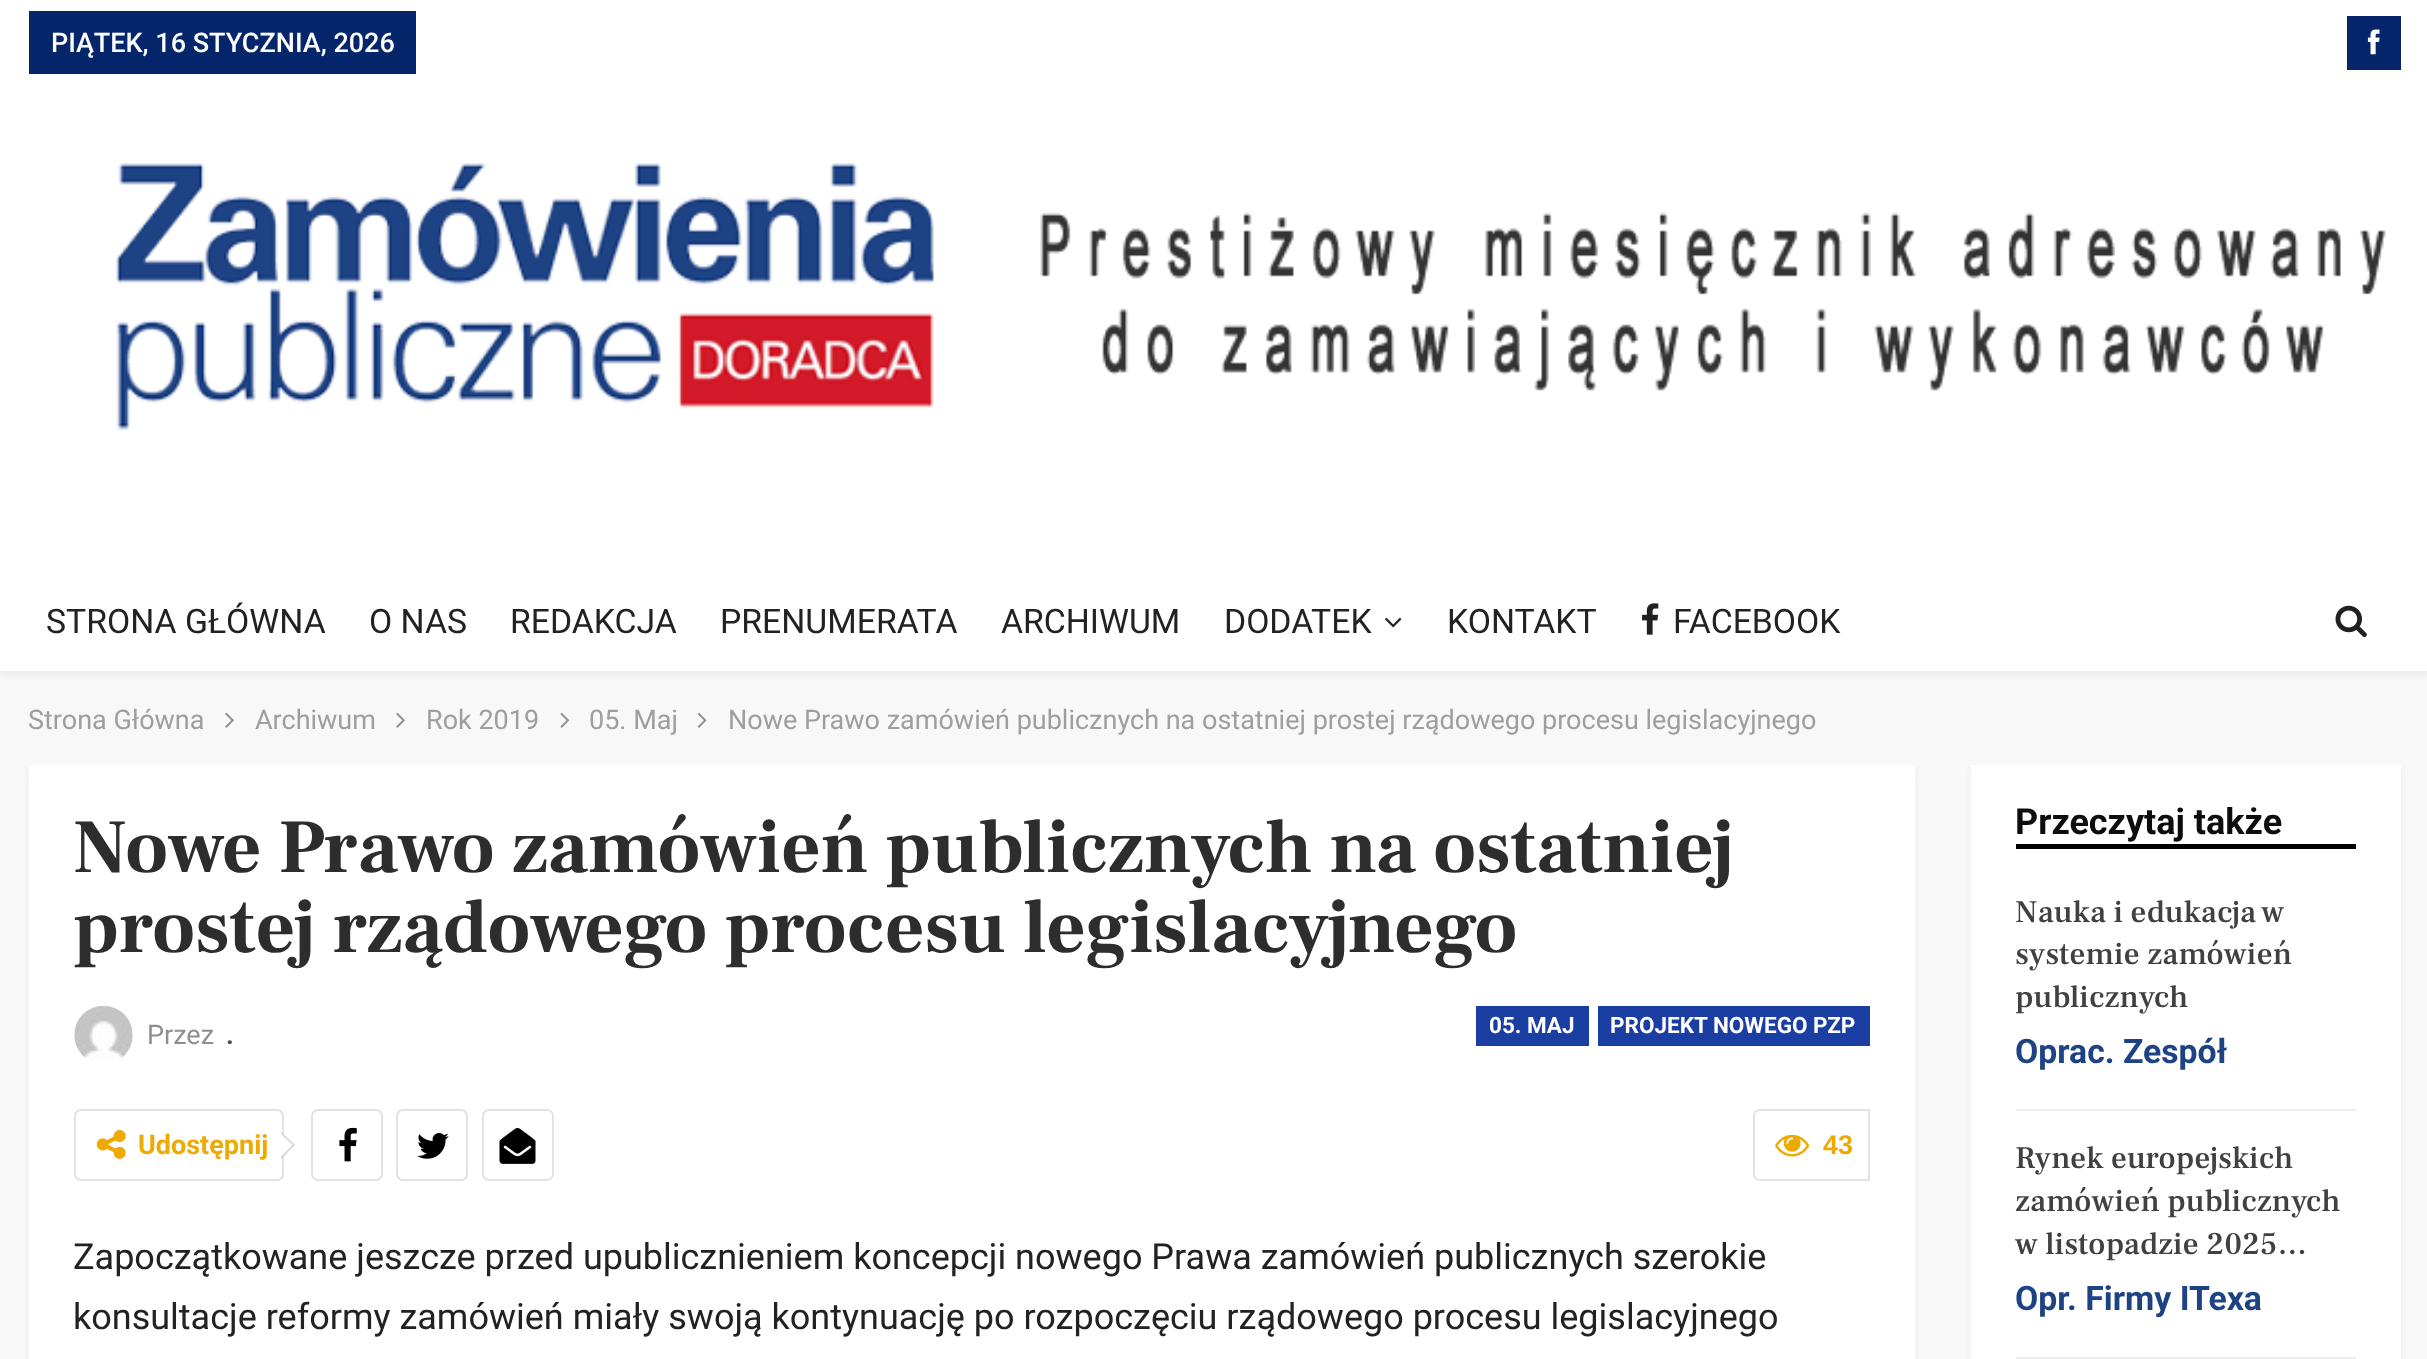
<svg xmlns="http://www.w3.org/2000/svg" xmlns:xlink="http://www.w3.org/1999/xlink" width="2427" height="1359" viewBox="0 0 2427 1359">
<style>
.cls-1{font:500 27px Roboto;fill:#ffffff}
.cls-2{font:33.75px Roboto;fill:#222222}
.cls-3{font:27px Roboto;fill:#9e9e9e}
.cls-4{font:bold 76.5px Frank Ruhl Libre;fill:#2d2d2d}
.cls-5{font:27px Roboto;fill:#8f8f8f}
.cls-6{font:bold 27px Roboto;fill:#4d4d4d}
.cls-7{font:bold 22.5px Roboto;fill:#ffffff}
.cls-8{font:bold 27px Roboto;fill:#edaa02}
.cls-9{font:bold 27px Liberation Sans;fill:#edaa02}
.cls-10{font:36px Roboto;fill:#222222}
.cls-11{font:bold 36px Roboto;fill:#0e0d0d}
.cls-12{font:500 31.5px Frank Ruhl Libre;fill:#414141}
.cls-13{font:bold 33.75px Roboto;fill:#1e4385}
</style>
<rect width="100%" height="100%" fill="#f8f8f8"/>
<rect fill="#cccccc" fill-opacity="0.3" filter="blur(3.5px)" x="0" y="5" width="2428" height="670"/>
<rect fill="#ffffff" x="0" y="0" width="2427" height="671"/>
<rect fill="#06266c" x="29" y="11" width="387" height="63"/>
<rect fill="#06266c" x="2347" y="16" width="54" height="54"/>
<image xlink:href="image0.png" x="2367" y="29" width="13" height="26"/>
<image xlink:href="image1.png" x="116" y="163" width="2270" height="268"/>
<image xlink:href="image2.png" x="1385" y="617" width="17" height="11"/>
<image xlink:href="image3.png" x="1642" y="603" width="17" height="32"/>
<image xlink:href="image4.png" x="2335" y="605" width="32" height="33"/>
<image xlink:href="image5.png" x="225" y="712" width="9" height="16"/>
<image xlink:href="image5.png" x="396" y="712" width="9" height="16"/>
<image xlink:href="image6.png" x="560" y="712" width="10" height="16"/>
<image xlink:href="image7.png" x="697" y="712" width="10" height="16"/>
<rect fill="#cccccc" fill-opacity="0.3" filter="blur(3.5px)" x="29" y="770" width="1886" height="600"/>
<rect fill="#ffffff" x="29" y="765" width="1886" height="594"/>
<image xlink:href="image8.png" x="74" y="1006" width="59" height="54"/>
<rect fill="#1b3ea3" x="1476" y="1006" width="113" height="40"/>
<rect fill="#1b3ea3" x="1598" y="1006" width="272" height="40"/>
<rect fill="none" stroke="#e2e2e2" stroke-width="2" x="75" y="1110" width="208" height="70" rx="6"/>
<image xlink:href="image9.png" x="96" y="1130" width="30" height="29"/>
<path fill="#d7d7d7" d="M281 1159V1132L295 1145Z"/>
<path fill="#ffffff" d="M281 1156.5V1134L292.5 1145Z"/>
<rect fill="none" stroke="#e2e2e2" stroke-width="2" x="312" y="1110" width="70" height="70" rx="6"/>
<image xlink:href="image10.png" x="339" y="1127" width="18" height="35"/>
<rect fill="none" stroke="#e2e2e2" stroke-width="2" x="397" y="1110" width="70" height="70" rx="6"/>
<image xlink:href="image11.png" x="417" y="1133" width="32" height="26"/>
<rect fill="none" stroke="#e2e2e2" stroke-width="2" x="483" y="1110" width="70" height="70" rx="6"/>
<image xlink:href="image12.png" x="499" y="1127" width="37" height="37"/>
<path fill="none" stroke="#e2e2e2" stroke-width="2" d="M1760 1110H1869V1180H1760C1756.5 1180 1754 1177.5 1754 1174V1116C1754 1112.5 1756.5 1110 1760 1110Z"/>
<image xlink:href="image13.png" x="1775" y="1134" width="34" height="23"/>
<rect fill="#cccccc" fill-opacity="0.3" filter="blur(3.5px)" x="1971" y="770" width="430" height="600"/>
<rect fill="#ffffff" x="1971" y="765" width="430" height="594"/>
<rect fill="#000000" x="2016" y="844" width="340" height="5"/>
<rect fill="#ededed" x="2016" y="1109" width="340" height="2"/>
<rect fill="#ededed" x="2016" y="1357" width="340" height="2"/>
<text class="cls-1" x="51" y="52">PIĄTEK, 16 STYCZNIA, 2026</text>
<text class="cls-2" x="46" y="633">STRONA GŁÓWNA</text>
<text class="cls-2" x="369" y="633">O NAS</text>
<text class="cls-2" x="510" y="633">REDAKCJA</text>
<text class="cls-2" x="720" y="633">PRENUMERATA</text>
<text class="cls-2" x="1001" y="633">ARCHIWUM</text>
<text class="cls-2" x="1224" y="633">DODATEK</text>
<text class="cls-2" x="1447" y="633">KONTAKT</text>
<text class="cls-2" x="1673" y="633">FACEBOOK</text>
<text class="cls-3" x="28" y="729">Strona Główna</text>
<text class="cls-3" x="255" y="729">Archiwum</text>
<text class="cls-3" x="426" y="729">Rok 2019</text>
<text class="cls-3" x="589" y="729">05. Maj</text>
<text class="cls-3" x="728" y="729">Nowe Prawo zamówień publicznych na ostatniej prostej rządowego procesu legislacyjnego</text>
<text class="cls-4"><tspan x="73" y="872">Nowe Prawo zamówień publicznych na ostatniej</tspan><tspan x="73" y="952">prostej rządowego procesu legislacyjnego</tspan></text>
<text class="cls-5" x="147" y="1044">Przez</text>
<text class="cls-6" x="226" y="1044">.</text>
<text class="cls-7" x="1489" y="1033">05. MAJ</text>
<text class="cls-7" x="1610" y="1033">PROJEKT NOWEGO PZP</text>
<text class="cls-8" x="138" y="1154">Udostępnij</text>
<text class="cls-9" x="1823" y="1154">43</text>
<text class="cls-10"><tspan x="73" y="1269">Zapoczątkowane jeszcze przed upublicznieniem koncepcji nowego Prawa zamówień publicznych szerokie</tspan><tspan x="73" y="1329">konsultacje reformy zamówień miały swoją kontynuację po rozpoczęciu rządowego procesu legislacyjnego</tspan></text>
<text class="cls-11" x="2015" y="834">Przeczytaj także</text>
<text class="cls-12"><tspan x="2015" y="922">Nauka i edukacja w</tspan><tspan x="2015" y="964">systemie zamówień</tspan><tspan x="2015" y="1007">publicznych</tspan></text>
<text class="cls-13" x="2015" y="1063">Oprac. Zespół</text>
<text class="cls-12"><tspan x="2015" y="1168">Rynek europejskich</tspan><tspan x="2015" y="1211">zamówień publicznych</tspan><tspan x="2015" y="1254">w listopadzie 2025…</tspan></text>
<text class="cls-13" x="2015" y="1310">Opr. Firmy ITexa</text>
</svg>
